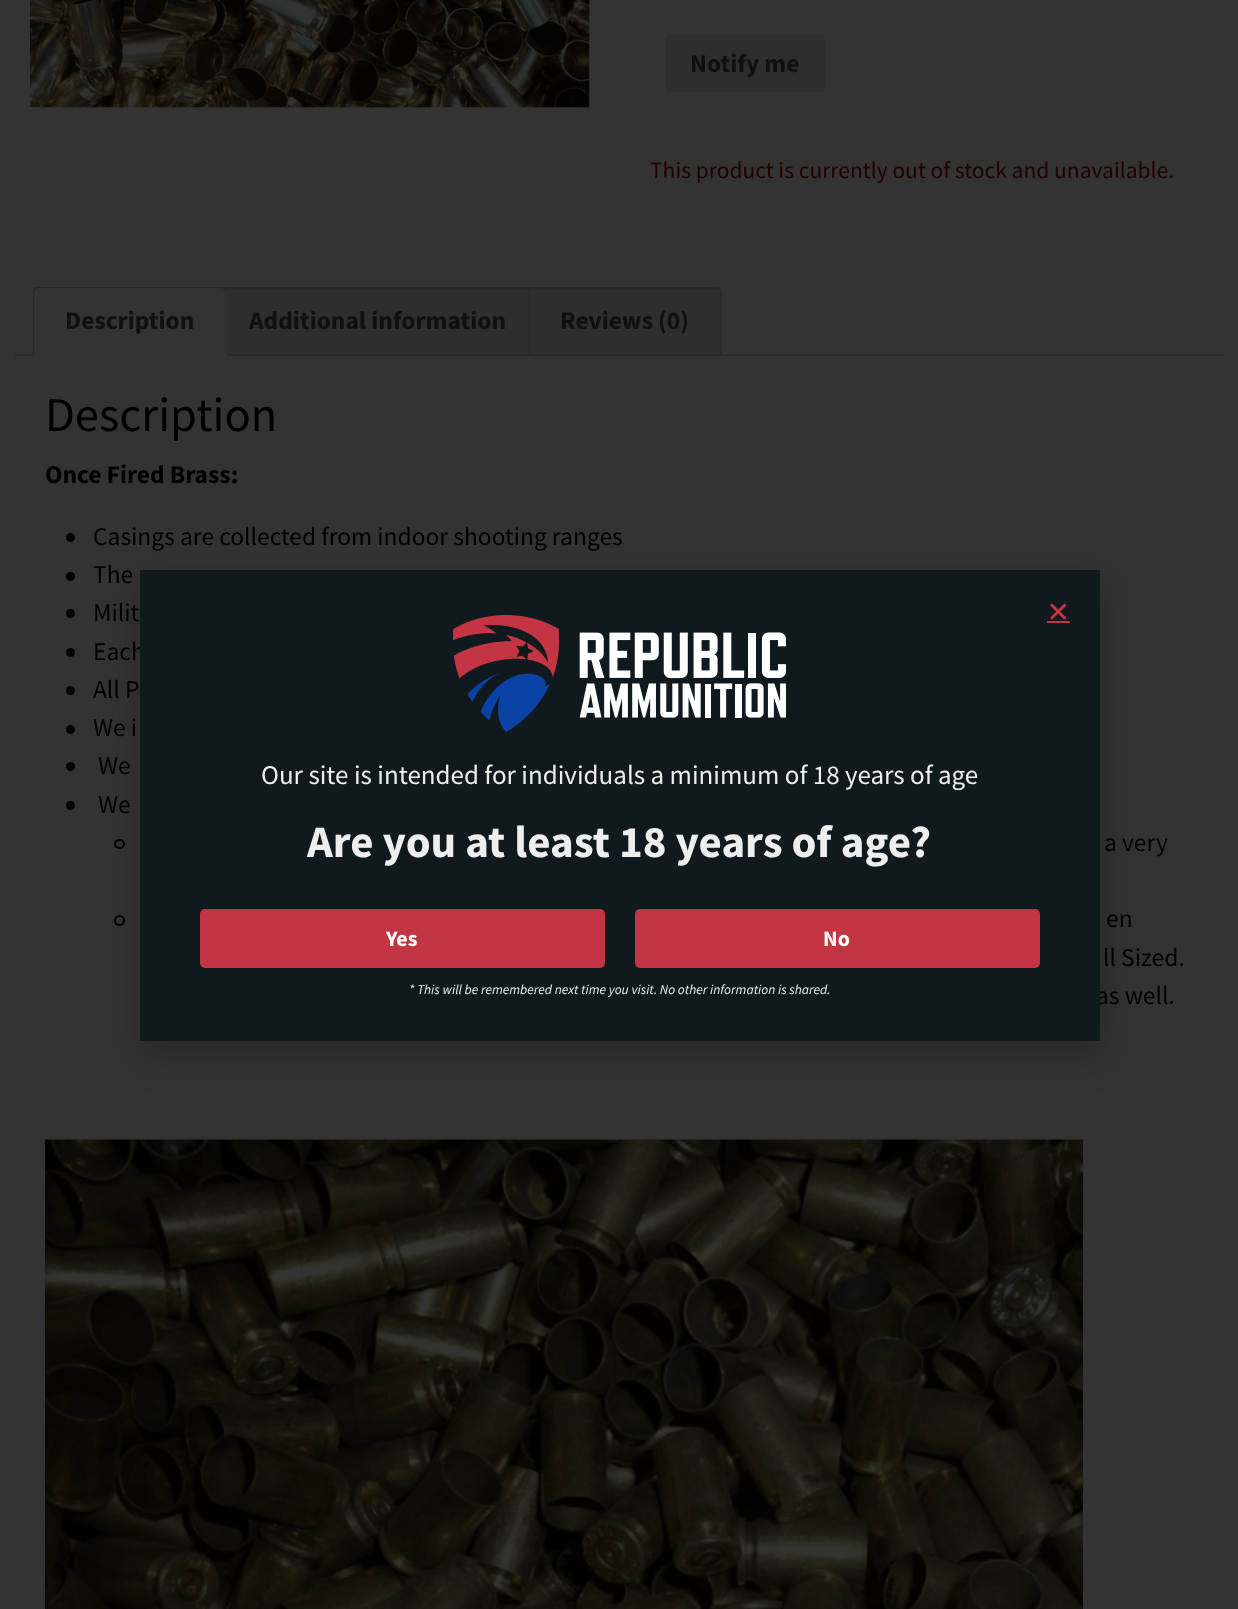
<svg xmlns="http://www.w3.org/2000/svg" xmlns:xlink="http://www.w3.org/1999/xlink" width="1238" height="1609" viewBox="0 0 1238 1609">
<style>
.cls-1{font:bold 25.5px Source Sans Pro;fill:#101010}
.cls-2{font:23.5px Source Sans Pro;fill:#220000}
.cls-3{font:48.5px Source Sans Pro;fill:#000000}
.cls-4{font:bold 25.5px Source Sans Pro;fill:#000000}
.cls-5{font:25.5px Source Sans Pro;fill:#000000}
.cls-6{font:27px Source Sans Pro;fill:#eeeeee}
.cls-7{font:bold 45px Source Sans Pro;fill:#eeeeee}
.cls-8{font:bold 22px Source Sans Pro;fill:#ffffff}
.cls-9{font:italic 13.5px Source Sans Pro;fill:#eeeeee}
</style>
<defs>
<clipPath id="clip1"><rect x="15" y="287" width="1209" height="69"/></clipPath>
</defs>
<rect width="100%" height="100%" fill="#333333"/>
<image xlink:href="image0.png" x="30" y="0" width="560" height="108"/>
<rect fill="#2f2e2f" x="665" y="35" width="160" height="57" rx="5"/>
<rect fill="#2f2e2f" x="225" y="287" width="309" height="67"/>
<rect fill="#2a292a" x="15" y="354" width="1209" height="2"/>
<rect fill="none" stroke="#29282b" stroke-width="2" x="217" y="288" width="321" height="67"/>
<path fill="#333333" d="M39 287H221C224.5 287 227 289.5 227 293V356H33V293C33 289.5 35.5 287 39 287Z"/>
<g clip-path="url(#clip1)">
<path fill="#29282b" d="M39 288L36 289L35 288L37 286H223L225 288L224 289C223 289 222 288 220 288Z"/>
</g>
<path fill="#29282b" d="M225 288C226 289 226 291 226 292V355L225 354V292L224 289Z"/>
<path fill="#29282b" d="M33 356L34 354V292L36 289L35 288C34 289 33 291 33 292Z"/>
<path fill="#2f2e2f" stroke="#29282b" stroke-width="2" d="M534 288H716C719 288 721 290 721 293V355H529V293C529 290 531 288 534 288Z"/>
<circle fill="#000000" cx="70.5" cy="537.5" r="4.5"/>
<circle fill="#000000" cx="70.5" cy="576.5" r="4.5"/>
<circle fill="#000000" cx="70.5" cy="613.5" r="4.5"/>
<circle fill="#000000" cx="70.5" cy="652.5" r="4.5"/>
<circle fill="#000000" cx="70.5" cy="690.5" r="4.5"/>
<circle fill="#000000" cx="70.5" cy="729.5" r="4.5"/>
<circle fill="#000000" cx="70.5" cy="766.5" r="4.5"/>
<circle fill="#000000" cx="70.5" cy="805.5" r="4.5"/>
<rect fill="none" stroke="#000000" stroke-width="2" x="115" y="840" width="9" height="8" rx="4"/>
<circle fill="none" stroke="#000000" stroke-width="2" cx="119.5" cy="920.5" r="4.5"/>
<image xlink:href="image1.png" x="45" y="1139" width="1038" height="470"/>
<rect fill="#000000" fill-opacity="0.2" filter="blur(17px)" x="138" y="578" width="969" height="480"/>
<text class="cls-1" x="690" y="72">Notify me</text>
<text class="cls-2" x="650" y="178">This product is currently out of stock and unavailable.</text>
<text class="cls-1" x="65" y="329">Description</text>
<text class="cls-1" x="249" y="329">Additional information</text>
<text class="cls-1" x="560" y="329">Reviews (0)</text>
<text class="cls-3" x="45" y="431">Description</text>
<text class="cls-4" x="45" y="483">Once Fired Brass:</text>
<text class="cls-5"><tspan x="93" y="545">Casings are collected from indoor shooting ranges</tspan><tspan x="93" y="583">The</tspan><tspan x="93" y="621">Milit</tspan><tspan x="93" y="660">Each</tspan><tspan x="93" y="698">All P</tspan><tspan x="93" y="736">We i</tspan></text>
<text class="cls-5"><tspan x="98" y="774">We</tspan><tspan x="98" y="813">We</tspan></text>
<text class="cls-5" x="1104" y="851">a very</text>
<text class="cls-5" x="1106" y="927">en</text>
<text class="cls-5" x="1103" y="966">ll Sized.</text>
<text class="cls-5" x="1096" y="1004">as well.</text>
<rect fill="#10191d" x="140" y="570" width="960" height="471"/>
<image xlink:href="image2.png" x="1050" y="603" width="17" height="17"/>
<rect fill="#c43544" x="1047" y="621" width="23" height="2"/>
<image xlink:href="image3.png" x="453" y="615" width="333" height="117"/>
<text class="cls-6" x="261" y="784">Our site is intended for individuals a minimum of 18 years of age</text>
<text class="cls-7" x="307" y="857">Are you at least 18 years of age?</text>
<rect fill="#c43544" x="200" y="909" width="405" height="59" rx="5"/>
<text class="cls-8" x="386" y="946">Yes</text>
<rect fill="#c43544" x="635" y="909" width="405" height="59" rx="5"/>
<text class="cls-8" x="823" y="946">No</text>
<text class="cls-9" x="409" y="994">* This will be remembered next time you visit. No other information is shared.</text>
</svg>
